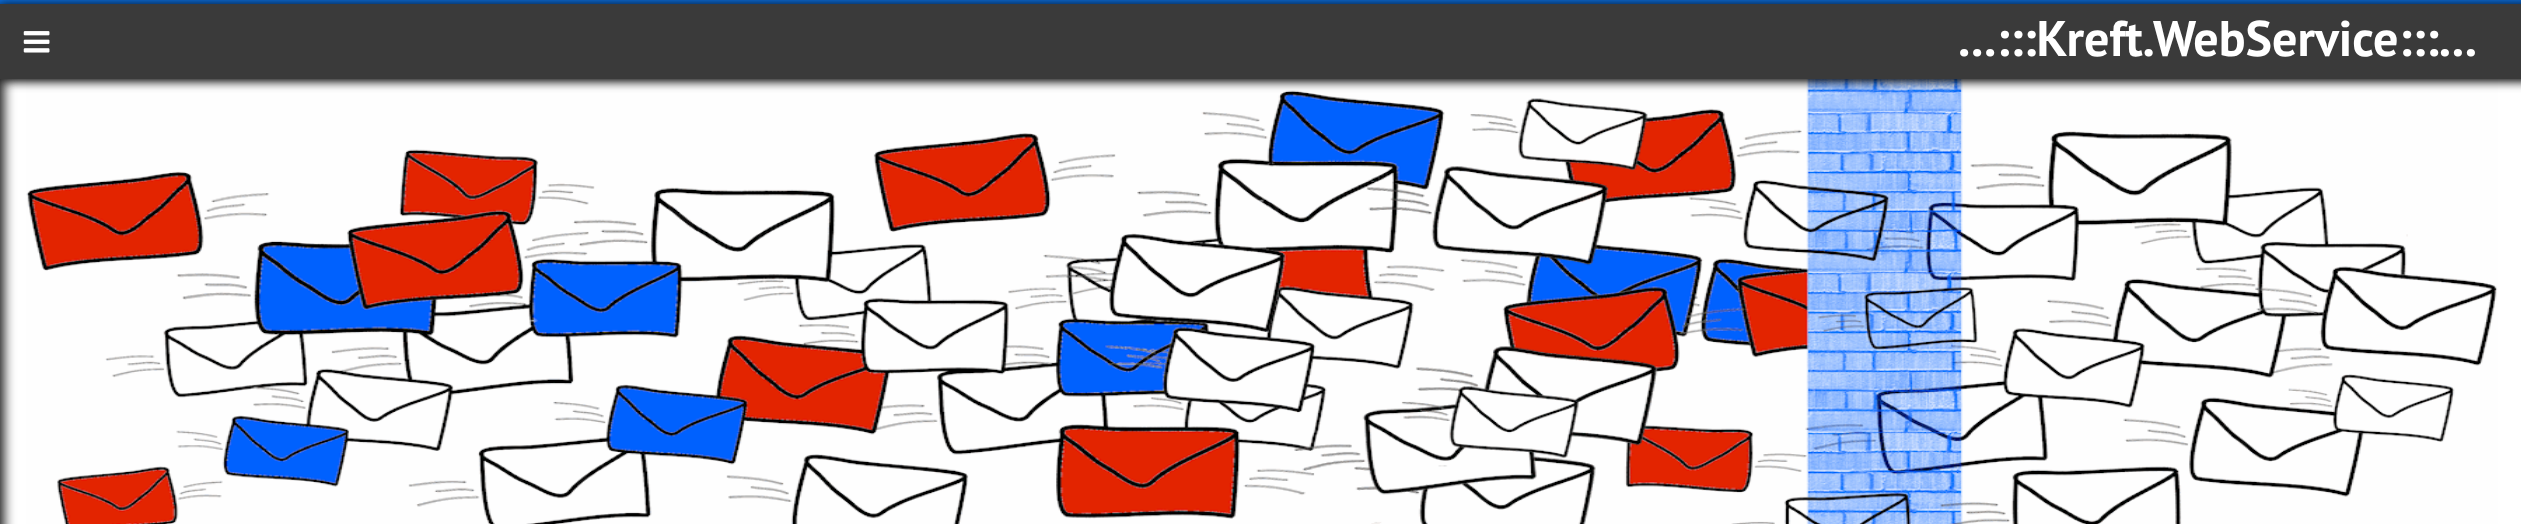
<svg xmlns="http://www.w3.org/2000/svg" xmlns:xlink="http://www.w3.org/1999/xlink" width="2521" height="524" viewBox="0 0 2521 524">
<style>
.cls-1{font:bold 50px PT Sans;fill:#ffffff}
</style>
<rect width="100%" height="100%" fill="#ffffff"/>
<image xlink:href="image1.png" x="26" y="79" width="2472" height="445"/>
<rect fill="#000000" fill-opacity="0.9" filter="blur(6px)" x="0" y="0" width="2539" height="79"/>
<rect fill="#0e73e6" x="0" y="0" width="2521" height="4"/>
<rect fill="#000000" fill-opacity="0.9" filter="blur(6px)" x="-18" y="10" width="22" height="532"/>
<rect fill="#000000" fill-opacity="0.9" filter="blur(6px)" x="0" y="4" width="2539" height="75"/>
<rect fill="#3a3a3a" x="0" y="4" width="2521" height="75"/>
<image xlink:href="image0.png" x="23" y="31" width="27" height="22"/>
<text class="cls-1" x="1958" y="56">...:::Kreft.WebService:::...</text>
</svg>
